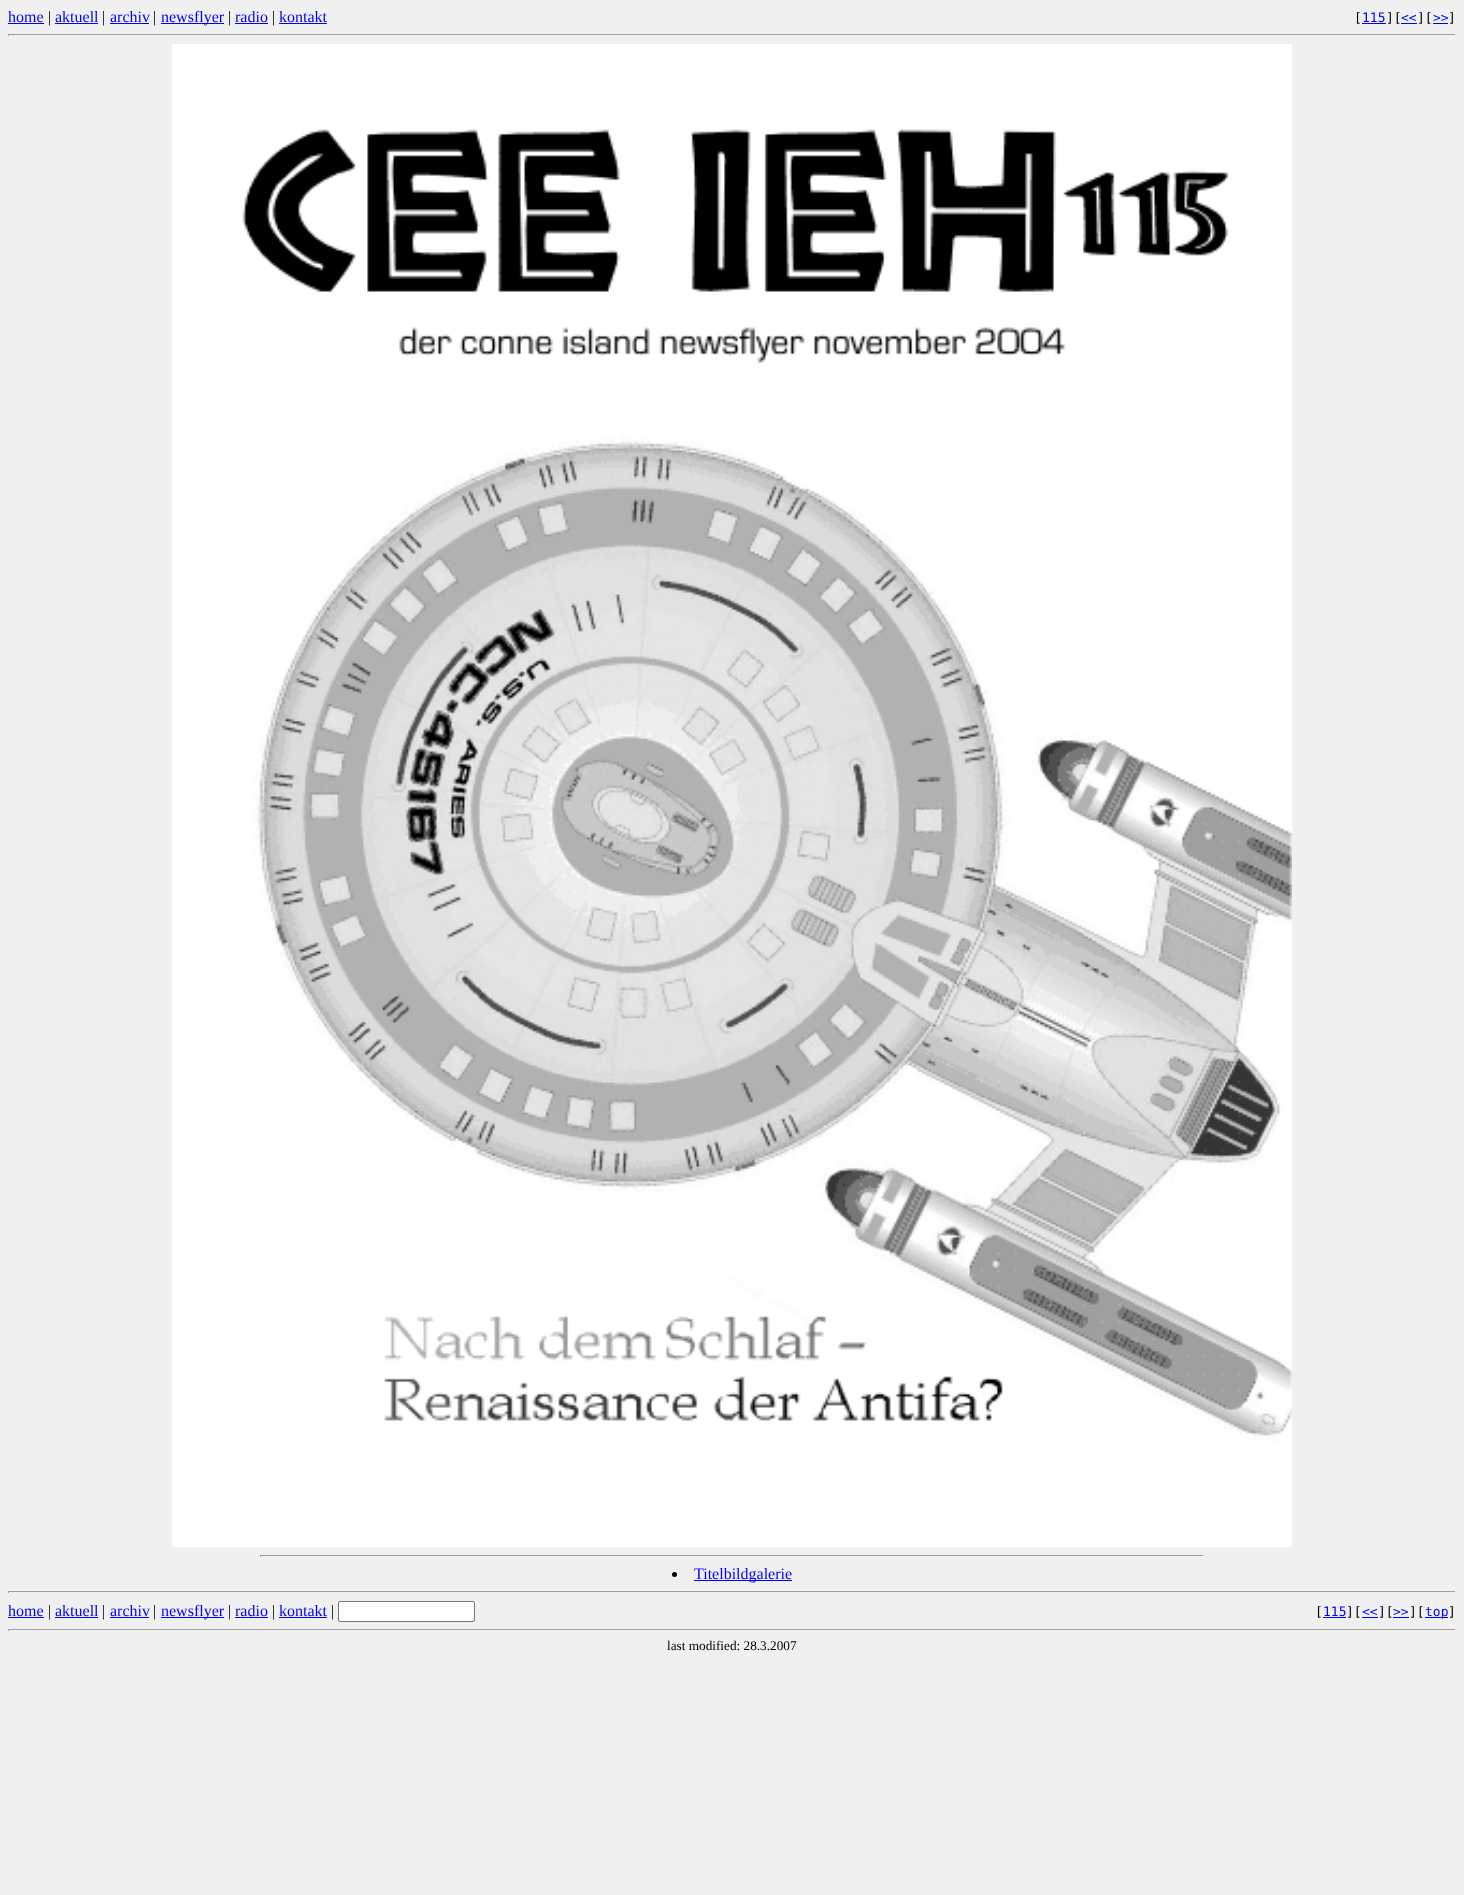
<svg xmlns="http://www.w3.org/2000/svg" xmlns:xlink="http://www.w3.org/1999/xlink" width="1464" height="1895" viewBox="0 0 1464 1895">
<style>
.cls-1{font:16px Liberation Serif;fill:#0000ff}
.cls-2{font:16px Liberation Serif;fill:#000000}
.cls-3{font:13px DejaVu Sans Mono;fill:#000000}
.cls-4{font:13px DejaVu Sans Mono;fill:#0000ff}
.cls-5{font:13.25px Liberation Serif;fill:#000000}
</style>
<rect width="100%" height="100%" fill="#f0f0f0"/>
<rect fill="#0000ff" x="8" y="23" width="36" height="1"/>
<rect fill="#0000ff" x="55" y="23" width="43" height="1"/>
<rect fill="#0000ff" x="110" y="23" width="39" height="1"/>
<rect fill="#0000ff" x="161" y="23" width="63" height="1"/>
<rect fill="#0000ff" x="235" y="23" width="33" height="1"/>
<rect fill="#0000ff" x="279" y="23" width="48" height="1"/>
<rect fill="#0000ff" x="1362" y="23" width="24" height="1"/>
<rect fill="#0000ff" x="1401" y="23" width="16" height="1"/>
<rect fill="#0000ff" x="1433" y="23" width="15" height="1"/>
<rect fill="#9f9f9f" x="8" y="34" width="1448" height="1"/>
<rect fill="#eeeeee" x="1455" y="34" width="1" height="2"/>
<rect fill="#9f9f9f" x="8" y="34" width="1" height="2"/>
<image xlink:href="image0.png" x="172" y="44" width="1120" height="1503"/>
<rect fill="#9f9f9f" x="260" y="1555" width="944" height="1"/>
<rect fill="#eeeeee" x="1203" y="1555" width="1" height="2"/>
<rect fill="#9f9f9f" x="260" y="1555" width="1" height="2"/>
<circle fill="#000000" cx="674.5" cy="1574.5" r="2.5"/>
<rect fill="#0000ff" x="694" y="1580" width="98" height="1"/>
<rect fill="#9f9f9f" x="8" y="1591" width="1448" height="1"/>
<rect fill="#eeeeee" x="1455" y="1591" width="1" height="2"/>
<rect fill="#9f9f9f" x="8" y="1591" width="1" height="2"/>
<rect fill="#0000ff" x="8" y="1617" width="36" height="1"/>
<rect fill="#0000ff" x="55" y="1617" width="43" height="1"/>
<rect fill="#0000ff" x="110" y="1617" width="39" height="1"/>
<rect fill="#0000ff" x="161" y="1617" width="63" height="1"/>
<rect fill="#0000ff" x="235" y="1617" width="33" height="1"/>
<rect fill="#0000ff" x="279" y="1617" width="48" height="1"/>
<rect fill="#ffffff" stroke="#767676" x="338.5" y="1601.5" width="136" height="20" rx="1.5"/>
<rect fill="#0000ff" x="1323" y="1617" width="23" height="1"/>
<rect fill="#0000ff" x="1362" y="1617" width="16" height="1"/>
<rect fill="#0000ff" x="1393" y="1617" width="16" height="1"/>
<rect fill="#0000ff" x="1425" y="1617" width="23" height="1"/>
<rect fill="#9f9f9f" x="8" y="1629" width="1448" height="1"/>
<rect fill="#eeeeee" x="1455" y="1629" width="1" height="2"/>
<rect fill="#9f9f9f" x="8" y="1629" width="1" height="2"/>
<text class="cls-1" x="8" y="22">home</text>
<text class="cls-2" x="48" y="22">|</text>
<text class="cls-1" x="55" y="22">aktuell</text>
<text class="cls-2" x="102" y="22">|</text>
<text class="cls-1" x="110" y="22">archiv</text>
<text class="cls-2" x="153" y="22">|</text>
<text class="cls-1" x="161" y="22">newsflyer</text>
<text class="cls-2" x="228" y="22">|</text>
<text class="cls-1" x="235" y="22">radio</text>
<text class="cls-2" x="272" y="22">|</text>
<text class="cls-1" x="279" y="22">kontakt</text>
<text class="cls-3" x="1354" y="22">[</text>
<text class="cls-4" x="1362" y="22">115</text>
<text class="cls-3" x="1386" y="22">][</text>
<text class="cls-4" x="1401" y="22">&lt;&lt;</text>
<text class="cls-3" x="1417" y="22">][</text>
<text class="cls-4" x="1433" y="22">&gt;&gt;</text>
<text class="cls-3" x="1448" y="22">]</text>
<text class="cls-1" x="694" y="1579">Titelbildgalerie</text>
<text class="cls-1" x="8" y="1616">home</text>
<text class="cls-2" x="48" y="1616">|</text>
<text class="cls-1" x="55" y="1616">aktuell</text>
<text class="cls-2" x="102" y="1616">|</text>
<text class="cls-1" x="110" y="1616">archiv</text>
<text class="cls-2" x="153" y="1616">|</text>
<text class="cls-1" x="161" y="1616">newsflyer</text>
<text class="cls-2" x="228" y="1616">|</text>
<text class="cls-1" x="235" y="1616">radio</text>
<text class="cls-2" x="272" y="1616">|</text>
<text class="cls-1" x="279" y="1616">kontakt</text>
<text class="cls-2" x="331" y="1616">|</text>
<text class="cls-3" x="1315" y="1616">[</text>
<text class="cls-4" x="1323" y="1616">115</text>
<text class="cls-3" x="1346" y="1616">][</text>
<text class="cls-4" x="1362" y="1616">&lt;&lt;</text>
<text class="cls-3" x="1378" y="1616">][</text>
<text class="cls-4" x="1393" y="1616">&gt;&gt;</text>
<text class="cls-3" x="1409" y="1616">][</text>
<text class="cls-4" x="1425" y="1616">top</text>
<text class="cls-3" x="1448" y="1616">]</text>
<text class="cls-5" x="667" y="1650">last modified: 28.3.2007</text>
</svg>
